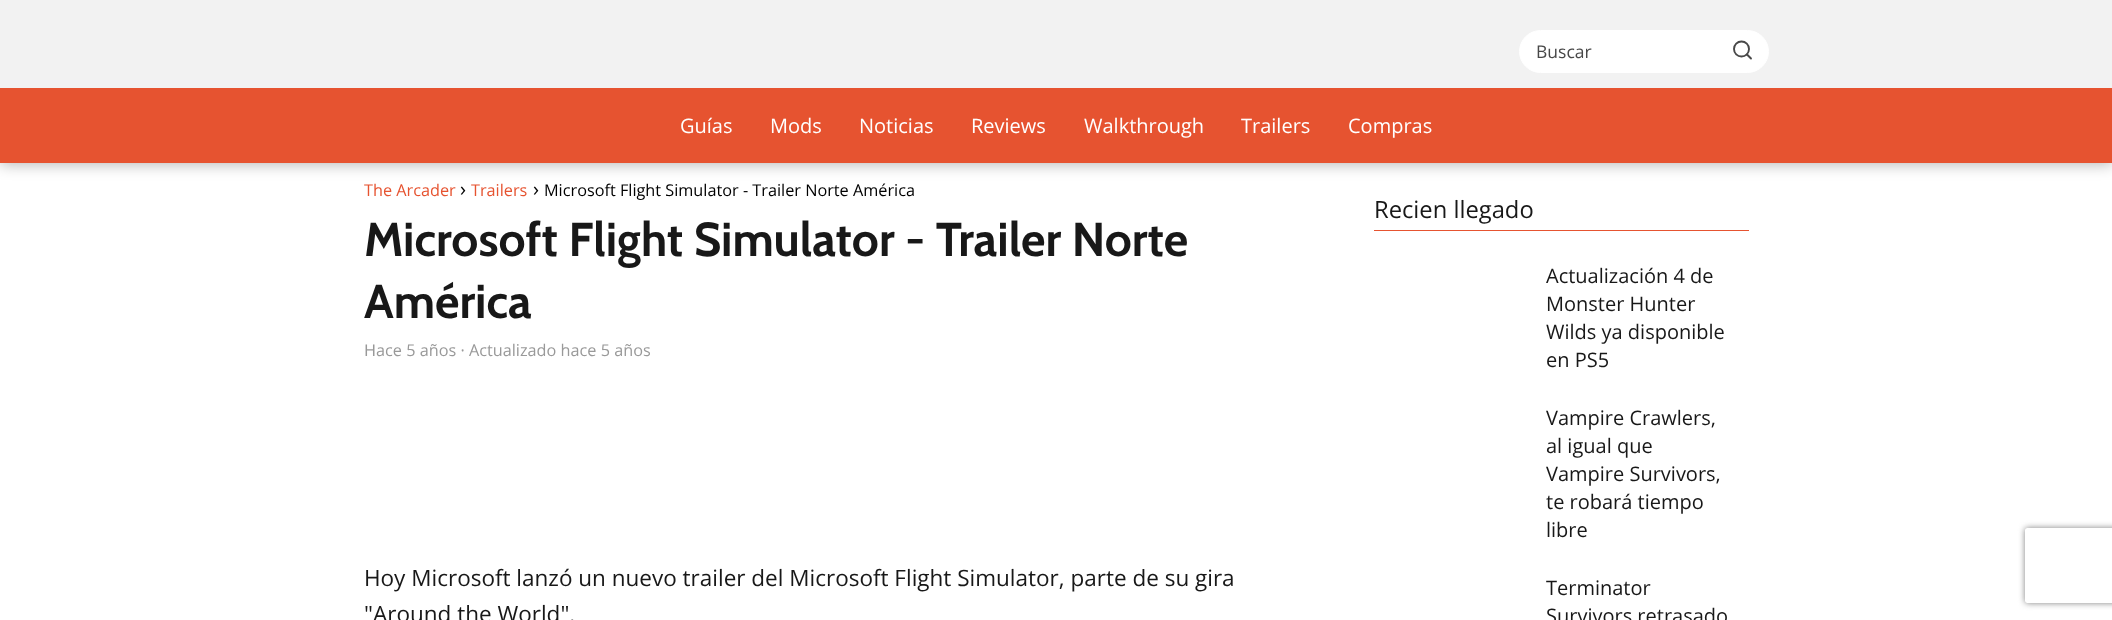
<svg xmlns="http://www.w3.org/2000/svg" xmlns:xlink="http://www.w3.org/1999/xlink" width="2112" height="620" viewBox="0 0 2112 620">
<style>
.cls-1{font:17.5px Open Sans;fill:#484848}
.cls-2{font:20px Open Sans;fill:#ffffff}
.cls-3{font:16.25px Open Sans;fill:#e65330}
.cls-4{font:20px Open Sans;fill:#000000}
.cls-5{font:16.25px Open Sans;fill:#000000}
.cls-6{font:bold 47.5px Cabin;fill:#181818}
.cls-7{font:16.25px Noto Sans;fill:#999999}
.cls-8{font:16.25px Open Sans;fill:#999999}
.cls-9{font:22.5px Open Sans;fill:#181818}
.cls-10{font:23.75px Open Sans;fill:#181818}
.cls-11{font:20px Open Sans;fill:#181818}
</style>
<defs>
<clipPath id="clip1"><path d="M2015 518H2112V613H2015ZM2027.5 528H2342.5C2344 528 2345 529 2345 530.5V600.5C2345 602 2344 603 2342.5 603H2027.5C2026 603 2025 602 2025 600.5V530.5C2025 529 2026 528 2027.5 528Z" clip-rule="evenodd"/></clipPath>
</defs>
<rect width="100%" height="100%" fill="#ffffff"/>
<rect fill="#000000" fill-opacity="0.3" filter="blur(7.5px)" x="0" y="89" width="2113" height="75"/>
<rect fill="#f2f2f2" x="0" y="0" width="2112" height="88"/>
<rect fill="#ffffff" stroke="#ffffff" x="1519.5" y="30.5" width="249" height="42" rx="21"/>
<circle fill="none" stroke="#484848" stroke-width="1.9" cx="1741.5" cy="49" r="7.5"/>
<path fill="none" stroke="#484848" stroke-width="1.9" stroke-linecap="round" stroke-linejoin="round" d="M1751 58.5L1747 54.5"/>
<rect fill="#e65330" x="0" y="88" width="2112" height="75"/>
<rect fill="#e65330" x="1374" y="230" width="375" height="1"/>
<g clip-path="url(#clip1)">
<rect fill="#808080" filter="blur(3px)" x="2025" y="528" width="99" height="75" rx="2.5"/>
</g>
<text class="cls-1" x="1536" y="58">Buscar</text>
<text class="cls-2" x="680" y="133">Guías</text>
<text class="cls-2" x="770" y="133">Mods</text>
<text class="cls-2" x="859" y="133">Noticias</text>
<text class="cls-2" x="971" y="133">Reviews</text>
<text class="cls-2" x="1084" y="133">Walkthrough</text>
<text class="cls-2" x="1241" y="133">Trailers</text>
<text class="cls-2" x="1348" y="133">Compras</text>
<text class="cls-3" x="364" y="196">The Arcader</text>
<text class="cls-4" x="460" y="196">›</text>
<text class="cls-3" x="471" y="196">Trailers</text>
<text class="cls-4" x="533" y="196">›</text>
<text class="cls-5" x="544" y="196">Microsoft Flight Simulator - Trailer Norte América</text>
<text class="cls-6"><tspan x="364" y="256">Microsoft Flight Simulator - Trailer Norte</tspan><tspan x="364" y="318">América</tspan></text>
<text class="cls-7" x="364" y="356">H</text>
<text class="cls-8" x="376" y="356">ace 5 años · Actualizado hace 5 años</text>
<text class="cls-9"><tspan x="364" y="586">Hoy Microsoft lanzó un nuevo trailer del Microsoft Flight Simulator, parte de su gira</tspan><tspan x="364" y="622">"Around the World".</tspan></text>
<text class="cls-10" x="1374" y="218">Recien llegado</text>
<text class="cls-11"><tspan x="1546" y="283">Actualización 4 de</tspan><tspan x="1546" y="311">Monster Hunter</tspan><tspan x="1546" y="339">Wilds ya disponible</tspan><tspan x="1546" y="367">en PS5</tspan></text>
<text class="cls-11"><tspan x="1546" y="425">Vampire Crawlers,</tspan><tspan x="1546" y="453">al igual que</tspan><tspan x="1546" y="481">Vampire Survivors,</tspan><tspan x="1546" y="509">te robará tiempo</tspan><tspan x="1546" y="537">libre</tspan></text>
<text class="cls-11"><tspan x="1546" y="595">Terminator</tspan><tspan x="1546" y="623">Survivors retrasado</tspan></text>
</svg>
